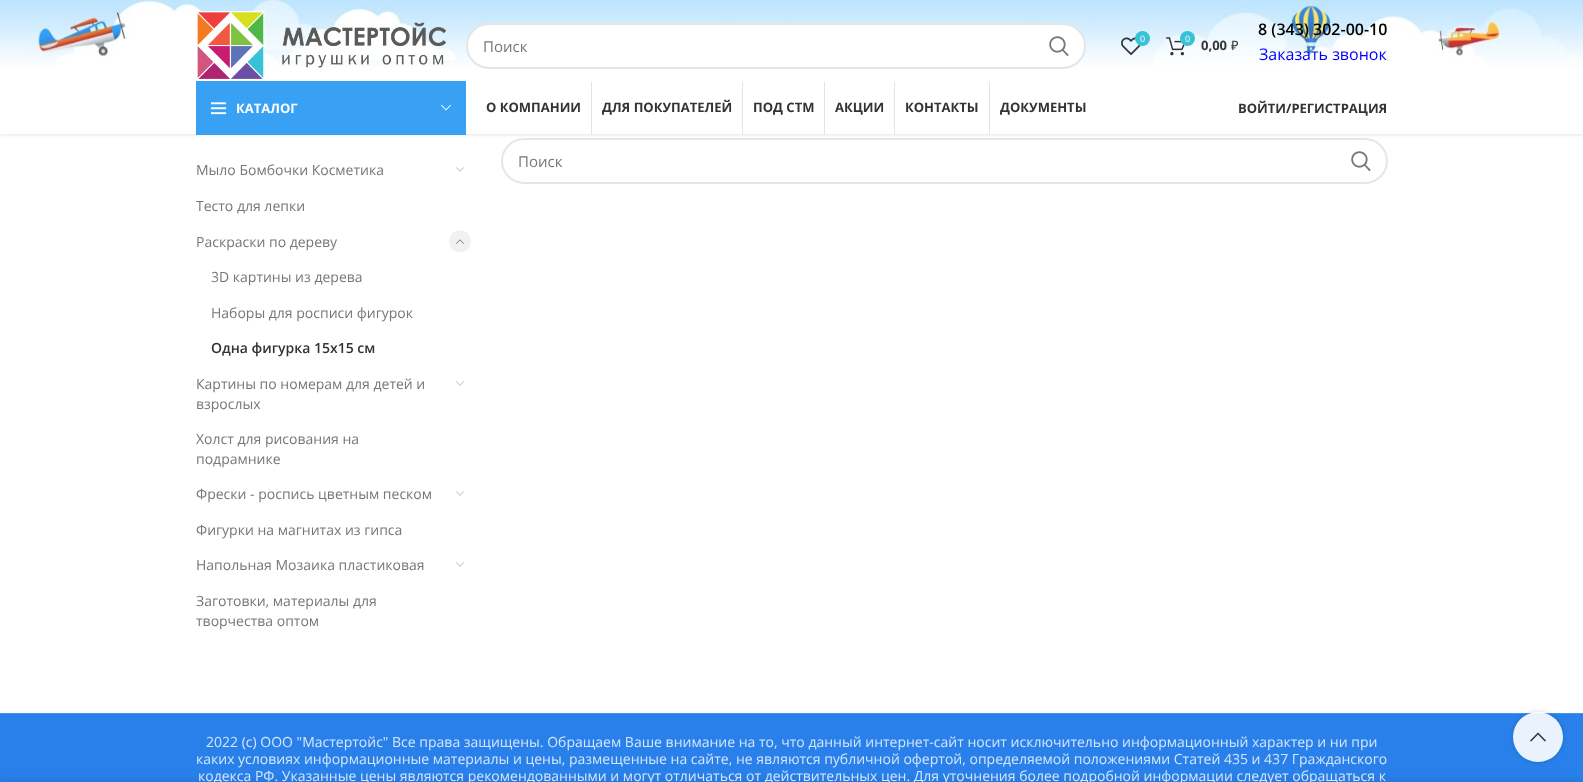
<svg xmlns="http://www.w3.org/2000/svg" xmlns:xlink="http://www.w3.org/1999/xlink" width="1583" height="782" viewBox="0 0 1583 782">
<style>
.cls-1{font:15px Open Sans;fill:#777777}
.cls-2{font:9px Open Sans;fill:#ffffff}
.cls-3{font:bold 13px Open Sans;fill:#333333}
.cls-4{font:13px Noto Sans;fill:#333333}
.cls-5{font:600 16px Open Sans;fill:#000000}
.cls-6{font:16px Open Sans;fill:#0000ff}
.cls-7{font:bold 13px Open Sans;fill:#ffffff}
.cls-8{font:14px Open Sans;fill:#777777}
.cls-9{font:600 14px Open Sans;fill:#333333}
.cls-10{font:14px Open Sans;fill:#d4e6fb}
</style>
<defs>
<clipPath id="clip1"><path d="M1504 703H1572V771H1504ZM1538 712C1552 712 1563 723 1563 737C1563 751 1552 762 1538 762C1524 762 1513 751 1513 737C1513 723 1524 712 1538 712Z" clip-rule="evenodd"/></clipPath>
</defs>
<rect width="100%" height="100%" fill="#ffffff"/>
<rect fill="none" stroke="#e6e6e6" stroke-width="2" x="502" y="139" width="885" height="44" rx="22"/>
<rect fill="#000000" fill-opacity="0.1" filter="blur(1.5px)" x="0" y="1" width="1583" height="134"/>
<rect fill="#ffffff" x="0" y="67" width="1583" height="67"/>
<image xlink:href="image0.png" x="0" y="0" width="1583" height="67"/>
<image xlink:href="image1.png" x="197" y="11" width="249" height="68"/>
<rect fill="#ffffff" x="466" y="23" width="620" height="46" rx="23"/>
<rect fill="none" stroke="#000000" stroke-opacity="0.1" stroke-width="2" x="467" y="24" width="618" height="44" rx="22"/>
<image xlink:href="image2.png" x="1049" y="36" width="20" height="21"/>
<image xlink:href="image3.png" x="1121" y="37" width="20" height="18"/>
<circle fill="#37c2d8" cx="1142.5" cy="38.5" r="7.5"/>
<image xlink:href="image4.png" x="1166" y="37" width="19" height="19"/>
<circle fill="#37c2d8" cx="1187.5" cy="38.5" r="7.5"/>
<rect fill="#38a1f4" x="196" y="81" width="270" height="54"/>
<image xlink:href="image5.png" x="211" y="102" width="16" height="13"/>
<image xlink:href="image6.png" x="441" y="104" width="10" height="7"/>
<rect fill="#e4e4e4" x="591" y="82" width="1" height="52"/>
<rect fill="#e4e4e4" x="742" y="82" width="1" height="52"/>
<rect fill="#e4e4e4" x="824" y="82" width="1" height="52"/>
<rect fill="#e4e4e4" x="894" y="82" width="1" height="52"/>
<rect fill="#e4e4e4" x="989" y="82" width="1" height="52"/>
<image xlink:href="image2.png" x="1351" y="151" width="20" height="21"/>
<image xlink:href="image7.png" x="456" y="167" width="8" height="5"/>
<path fill="#f1f1f1" d="M460 252.5C445.5 252.5 445.5 230.5 460 230.5C474.5 230.5 474.5 252.5 460 252.5Z"/>
<image xlink:href="image8.png" x="456" y="239" width="8" height="5"/>
<image xlink:href="image7.png" x="456" y="381" width="8" height="5"/>
<image xlink:href="image7.png" x="456" y="491" width="8" height="5"/>
<image xlink:href="image7.png" x="456" y="562" width="8" height="5"/>
<rect fill="#2980ea" x="0" y="714" width="1583" height="68"/>
<rect fill="#4993ed" x="0" y="713" width="1583" height="1"/>
<g clip-path="url(#clip1)">
<rect fill="#000000" fill-opacity="0.17" filter="blur(2.5px)" x="1513" y="712" width="50" height="50" rx="25"/>
</g>
<circle fill="#ffffff" fill-opacity="0.9" cx="1538" cy="737" r="25"/>
<image xlink:href="image9.png" x="1530" y="732" width="16" height="10"/>
<rect fill="#000000" fill-opacity="0.14" filter="blur(4.5px)" x="0" y="782" width="1583" height="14"/>
<text class="cls-1" x="483" y="52">Поиск</text>
<text class="cls-2" x="1140" y="42">0</text>
<text class="cls-2" x="1185" y="42">0</text>
<text class="cls-3" x="1201" y="50">0,00</text>
<text class="cls-4" x="1231" y="50">₽</text>
<text class="cls-5" x="1258" y="35">8 (343) 302-00-10</text>
<text class="cls-6" x="1259" y="60">Заказать звонок</text>
<text class="cls-7" x="236" y="113">КАТАЛОГ</text>
<text class="cls-3" x="486" y="112">О КОМПАНИИ</text>
<text class="cls-3" x="602" y="112">ДЛЯ ПОКУПАТЕЛЕЙ</text>
<text class="cls-3" x="753" y="112">ПОД СТМ</text>
<text class="cls-3" x="835" y="112">АКЦИИ</text>
<text class="cls-3" x="905" y="112">КОНТАКТЫ</text>
<text class="cls-3" x="1000" y="112">ДОКУМЕНТЫ</text>
<text class="cls-3" x="1238" y="113">ВОЙТИ/РЕГИСТРАЦИЯ</text>
<text class="cls-1" x="518" y="167">Поиск</text>
<text class="cls-8" x="196" y="175">Мыло Бомбочки Косметика</text>
<text class="cls-8" x="196" y="211">Тесто для лепки</text>
<text class="cls-8" x="196" y="247">Раскраски по дереву</text>
<text class="cls-8" x="211" y="282">3D картины из дерева</text>
<text class="cls-8" x="211" y="318">Наборы для росписи фигурок</text>
<text class="cls-9" x="211" y="353">Одна фигурка 15х15 см</text>
<text class="cls-8"><tspan x="196" y="389">Картины по номерам для детей и</tspan><tspan x="196" y="409">взрослых</tspan></text>
<text class="cls-8"><tspan x="196" y="444">Холст для рисования на</tspan><tspan x="196" y="464">подрамнике</tspan></text>
<text class="cls-8" x="196" y="499">Фрески - роспись цветным песком</text>
<text class="cls-8" x="196" y="535">Фигурки на магнитах из гипса</text>
<text class="cls-8" x="196" y="570">Напольная Мозаика пластиковая</text>
<text class="cls-8"><tspan x="196" y="606">Заготовки, материалы для</tspan><tspan x="196" y="626">творчества оптом</tspan></text>
<text class="cls-10" x="206" y="747">2022 (с) ООО "Мастертойс" Все права защищены. Обращаем Ваше внимание на то, что данный интернет-сайт носит исключительно информационный характер и ни при</text>
<text class="cls-10" x="196" y="764">каких условиях информационные материалы и цены, размещенные на сайте, не являются публичной офертой, определяемой положениями Статей 435 и 437 Гражданского</text>
<text class="cls-10" x="198" y="781">кодекса РФ. Указанные цены являются рекомендованными и могут отличаться от действительных цен. Для уточнения более подробной информации следует обращаться к</text>
</svg>
